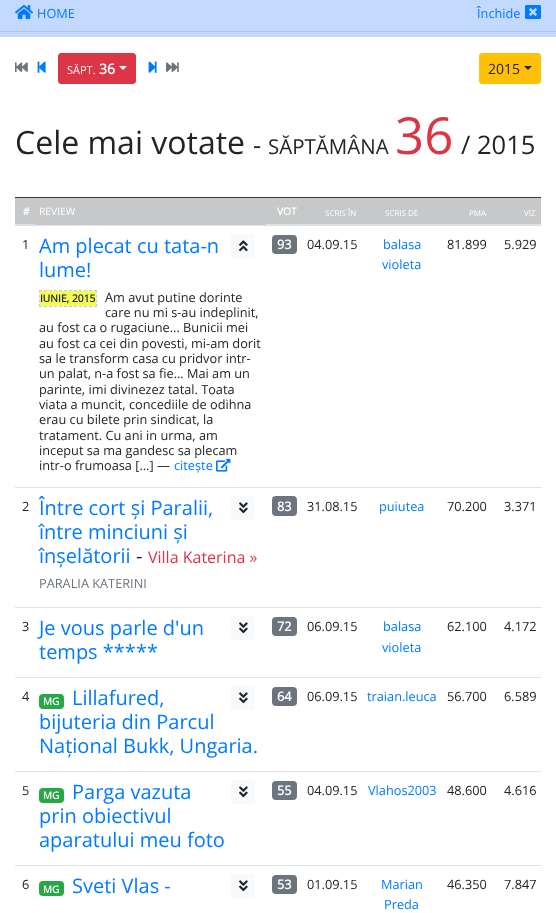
<svg xmlns="http://www.w3.org/2000/svg" xmlns:xlink="http://www.w3.org/1999/xlink" width="556" height="913" viewBox="0 0 556 913">
<style>
.cls-1{font:12.75px Open Sans;fill:#007bff}
.cls-2{font:11px Open Sans;fill:#ffffff}
.cls-3{font:bold 14px Open Sans;fill:#ffffff}
.cls-4{font:14px Open Sans;fill:#212529}
.cls-5{font:32px Open Sans;fill:#212529}
.cls-6{font:25.5px Open Sans;fill:#212529}
.cls-7{font:20.5px Open Sans;fill:#212529}
.cls-8{font:51px Open Sans;fill:#dc3545}
.cls-9{font:bold 10.25px Open Sans;fill:#ffffff}
.cls-10{font:10.25px Open Sans;fill:#ffffff}
.cls-11{font:8px Open Sans;fill:#ffffff}
.cls-12{font:12.75px Open Sans;fill:#212529}
.cls-13{font:20px Open Sans;fill:#007bff}
.cls-14{font:bold 10.25px Open Sans;fill:#212529}
.cls-15{font:bold 12.75px Open Sans;fill:#ffffff}
.cls-16{font:20px Open Sans;fill:#212529}
.cls-17{font:16px Open Sans;fill:#dc3545}
.cls-18{font:12.75px Open Sans;fill:#6c757d}
.cls-19{font:bold 10px Open Sans;fill:#ffffff}
</style>
<rect width="100%" height="100%" fill="#c3d9ff"/>
<image xlink:href="image0.png" x="15" y="5" width="18" height="14"/>
<image xlink:href="image1.png" x="525" y="5" width="16" height="14"/>
<rect fill="#b0c3e6" x="0" y="31" width="556" height="1"/>
<rect fill="#ffffff" x="0" y="37" width="556" height="876"/>
<image xlink:href="image2.png" x="15" y="62" width="13" height="10"/>
<image xlink:href="image3.png" x="37" y="61" width="9" height="12"/>
<rect fill="#dc3545" stroke="#dc3545" x="58.5" y="53.5" width="77" height="30" rx="2.5"/>
<path fill="#ffffff" d="M119 66H127L123 70Z"/>
<image xlink:href="image4.png" x="148" y="61" width="9" height="12"/>
<image xlink:href="image5.png" x="166" y="62" width="13" height="10"/>
<rect fill="#ffc107" stroke="#ffc107" x="479.5" y="53.5" width="61" height="30" rx="2.5"/>
<path fill="#212529" d="M524 66H532L528 70Z"/>
<rect fill="#c6c8ca" x="15" y="198" width="19" height="26"/>
<rect fill="#c6c8ca" x="34" y="198" width="233" height="27"/>
<rect fill="#dee2e6" x="34" y="225" width="234" height="1"/>
<rect fill="#dee2e6" x="15" y="224" width="20" height="2"/>
<rect fill="#c6c8ca" x="267" y="198" width="274" height="26"/>
<rect fill="#32383e" x="15" y="197" width="526" height="1"/>
<rect fill="#dee2e6" x="266" y="224" width="275" height="2"/>
<rect fill="#f8f9fa" x="231" y="234" width="24" height="24" rx="3"/>
<image xlink:href="image6.png" x="239" y="240" width="9" height="12"/>
<path fill="none" stroke="#cccccc" stroke-dasharray="3 2" d="M39 290.5H97"/>
<path fill="none" stroke="#cccccc" stroke-dasharray="3 1.67" d="M96.5 290V307"/>
<path fill="none" stroke="#cccccc" stroke-dasharray="3 2" d="M39 306.5H97"/>
<path fill="none" stroke="#cccccc" stroke-dasharray="3 1.67" d="M39.5 290V307"/>
<rect fill="#f4fa58" x="40" y="291" width="56" height="15"/>
<rect fill="#6c757d" x="272" y="235" width="25" height="19" rx="4"/>
<rect fill="#f8f9fa" x="231" y="496" width="24" height="24" rx="3"/>
<image xlink:href="image8.png" x="239" y="502" width="9" height="12"/>
<rect fill="#6c757d" x="272" y="496" width="25" height="20" rx="4"/>
<rect fill="#dee2e6" x="15" y="487" width="526" height="1"/>
<rect fill="#f8f9fa" x="231" y="616" width="24" height="24" rx="3"/>
<image xlink:href="image8.png" x="239" y="622" width="9" height="12"/>
<rect fill="#6c757d" x="272" y="617" width="25" height="19" rx="4"/>
<rect fill="#dee2e6" x="15" y="607" width="526" height="1"/>
<rect fill="#28a745" x="39" y="694" width="25" height="15" rx="4"/>
<rect fill="#f8f9fa" x="231" y="686" width="24" height="24" rx="3"/>
<image xlink:href="image8.png" x="239" y="692" width="9" height="12"/>
<rect fill="#6c757d" x="272" y="687" width="25" height="19" rx="4"/>
<rect fill="#dee2e6" x="15" y="677" width="526" height="1"/>
<rect fill="#28a745" x="39" y="788" width="25" height="15" rx="4"/>
<rect fill="#f8f9fa" x="231" y="780" width="24" height="24" rx="3"/>
<image xlink:href="image8.png" x="239" y="786" width="9" height="12"/>
<rect fill="#6c757d" x="272" y="781" width="25" height="19" rx="4"/>
<rect fill="#dee2e6" x="15" y="771" width="526" height="1"/>
<rect fill="#28a745" x="39" y="881" width="25" height="15" rx="4"/>
<rect fill="#f8f9fa" x="231" y="874" width="24" height="24" rx="3"/>
<image xlink:href="image8.png" x="239" y="880" width="9" height="12"/>
<rect fill="#6c757d" x="272" y="875" width="25" height="19" rx="4"/>
<rect fill="#dee2e6" x="15" y="865" width="526" height="1"/>
<text class="cls-1" x="37" y="18">HOME</text>
<text class="cls-1" x="477" y="18">Închide</text>
<text class="cls-2" x="67" y="74">SĂPT.</text>
<text class="cls-3" x="99" y="74">36</text>
<text class="cls-4" x="488" y="74">2015</text>
<text class="cls-5" x="15" y="154">Cele mai votate</text>
<text class="cls-6" x="253" y="154">-</text>
<text class="cls-7" x="268" y="154">SĂPTĂMÂNA</text>
<text class="cls-8" x="395" y="154">36</text>
<text class="cls-6" x="461" y="154">/ 2015</text>
<text class="cls-9" x="23" y="215">#</text>
<text class="cls-10" x="39" y="215">REVIEW</text>
<text class="cls-9" x="277" y="215">VOT</text>
<text class="cls-11" x="325" y="216">SCRIS ÎN</text>
<text class="cls-11" x="385" y="216">SCRIS DE</text>
<text class="cls-11" x="469" y="216">PMA</text>
<text class="cls-11" x="524" y="216">VIZ</text>
<text class="cls-12" x="22" y="249">1</text>
<text class="cls-13"><tspan x="39" y="253">Am plecat cu tata-n</tspan><tspan x="39" y="277">lume!</tspan></text>
<text class="cls-14" x="40" y="302">IUNIE, 2015</text>
<text class="cls-12"><tspan x="105" y="302">Am avut putine dorinte</tspan><tspan x="105" y="317">care nu mi s-au indeplinit,</tspan></text>
<text class="cls-12"><tspan x="39" y="332">au fost ca o rugaciune... Bunicii mei</tspan><tspan x="39" y="348">au fost ca cei din povesti, mi-am dorit</tspan><tspan x="39" y="363">sa le transform casa cu pridvor intr-</tspan><tspan x="39" y="378">un palat, n-a fost sa fie... Mai am un</tspan><tspan x="39" y="394">parinte, imi divinezez tatal. Toata</tspan><tspan x="39" y="409">viata a muncit, concediile de odihna</tspan><tspan x="39" y="424">erau cu bilete prin sindicat, la</tspan><tspan x="39" y="440">tratament. Cu ani in urma, am</tspan><tspan x="39" y="455">inceput sa ma gandesc sa plecam</tspan><tspan x="39" y="470">intr-o frumoasa [...] —</tspan></text>
<text class="cls-1" x="174" y="470">citește</text>
<image xlink:href="image7.png" x="216" y="458" width="15" height="14"/>
<text class="cls-15" x="277" y="249">93</text>
<text class="cls-12" x="307" y="249">04.09.15</text>
<text class="cls-1" x="383" y="249">balasa</text>
<text class="cls-1" x="382" y="269">violeta</text>
<text class="cls-12" x="447" y="249">81.899</text>
<text class="cls-12" x="504" y="249">5.929</text>
<text class="cls-12" x="22" y="511">2</text>
<text class="cls-13"><tspan x="39" y="515">Între cort și Paralii,</tspan><tspan x="39" y="539">între minciuni și</tspan><tspan x="39" y="563">înșelătorii</tspan></text>
<text class="cls-16" x="136" y="563">-</text>
<text class="cls-17" x="148" y="563">Villa Katerina »</text>
<text class="cls-18" x="39" y="588">PARALIA KATERINI</text>
<text class="cls-15" x="277" y="511">83</text>
<text class="cls-12" x="307" y="511">31.08.15</text>
<text class="cls-1" x="379" y="511">puiutea</text>
<text class="cls-12" x="447" y="511">70.200</text>
<text class="cls-12" x="504" y="511">3.371</text>
<text class="cls-12" x="22" y="631">3</text>
<text class="cls-13"><tspan x="39" y="635">Je vous parle d'un</tspan><tspan x="39" y="659">temps *****</tspan></text>
<text class="cls-15" x="277" y="631">72</text>
<text class="cls-12" x="307" y="631">06.09.15</text>
<text class="cls-1" x="383" y="631">balasa</text>
<text class="cls-1" x="382" y="652">violeta</text>
<text class="cls-12" x="447" y="631">62.100</text>
<text class="cls-12" x="504" y="631">4.172</text>
<text class="cls-12" x="22" y="701">4</text>
<text class="cls-19" x="43" y="705">MG</text>
<text class="cls-13" x="72" y="705">Lillafured,</text>
<text class="cls-13"><tspan x="39" y="729">bijuteria din Parcul</tspan><tspan x="39" y="753">Național Bukk, Ungaria.</tspan></text>
<text class="cls-15" x="277" y="701">64</text>
<text class="cls-12" x="307" y="701">06.09.15</text>
<text class="cls-1" x="367" y="701">traian.leuca</text>
<text class="cls-12" x="447" y="701">56.700</text>
<text class="cls-12" x="504" y="701">6.589</text>
<text class="cls-12" x="22" y="795">5</text>
<text class="cls-19" x="43" y="799">MG</text>
<text class="cls-13" x="72" y="799">Parga vazuta</text>
<text class="cls-13"><tspan x="39" y="823">prin obiectivul</tspan><tspan x="39" y="847">aparatului meu foto</tspan></text>
<text class="cls-15" x="277" y="795">55</text>
<text class="cls-12" x="307" y="795">04.09.15</text>
<text class="cls-1" x="368" y="795">Vlahos2003</text>
<text class="cls-12" x="447" y="795">48.600</text>
<text class="cls-12" x="504" y="795">4.616</text>
<text class="cls-12" x="22" y="889">6</text>
<text class="cls-19" x="43" y="893">MG</text>
<text class="cls-13" x="72" y="893">Sveti Vlas -</text>
<text class="cls-15" x="277" y="889">53</text>
<text class="cls-12" x="307" y="889">01.09.15</text>
<text class="cls-1" x="381" y="889">Marian</text>
<text class="cls-1" x="384" y="909">Preda</text>
<text class="cls-12" x="447" y="889">46.350</text>
<text class="cls-12" x="504" y="889">7.847</text>
</svg>
